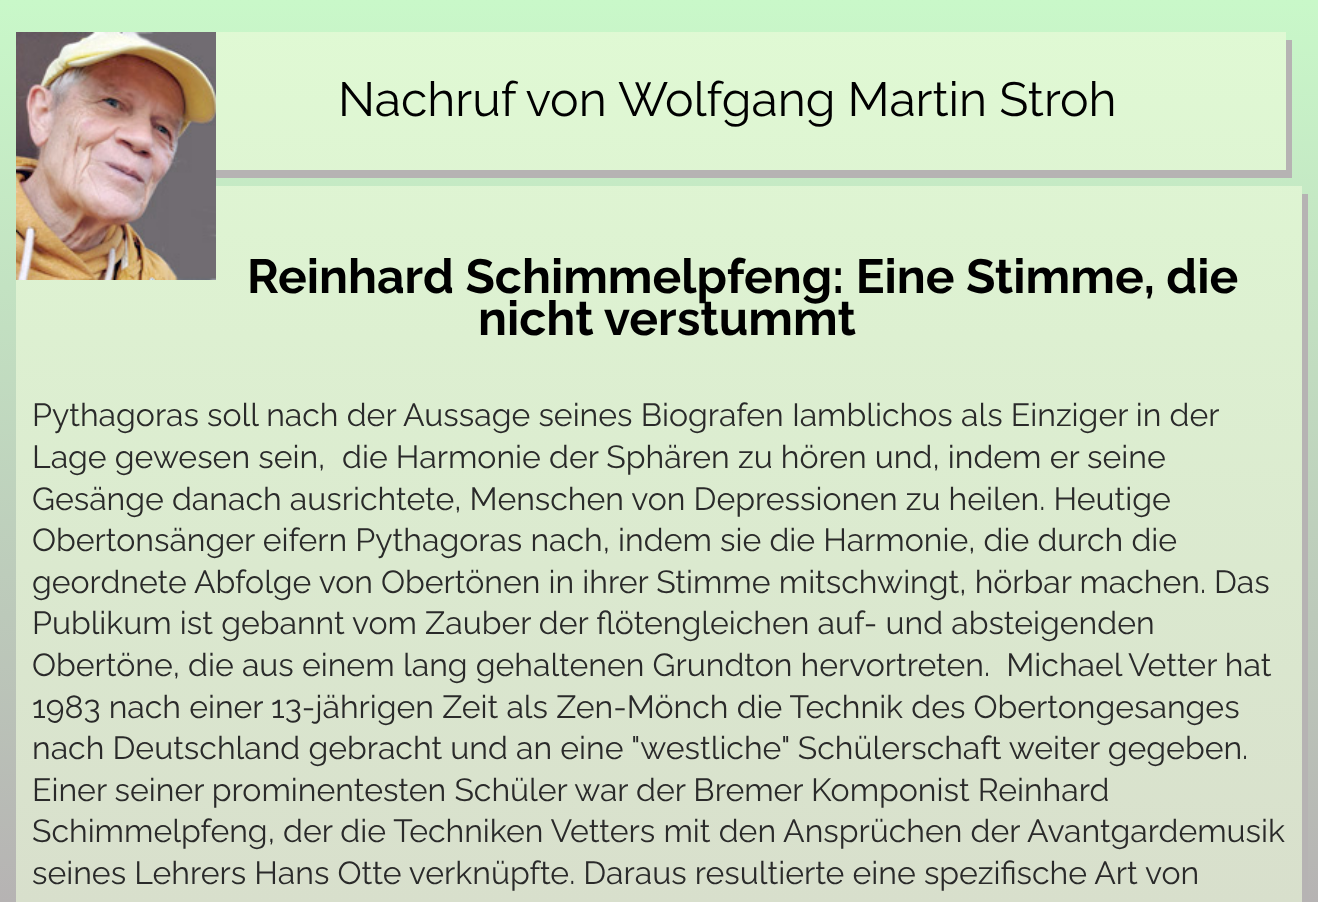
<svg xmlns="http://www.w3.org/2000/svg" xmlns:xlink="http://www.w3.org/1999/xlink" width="1318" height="902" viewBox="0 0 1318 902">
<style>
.cls-1{font:100 48px Raleway;fill:#000000}
.cls-2{font:100 48px 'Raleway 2';fill:#000000}
.cls-3{font:100 32px Raleway;fill:#2a2a2a}
</style>
<defs>
<linearGradient id="g1" gradientUnits="userSpaceOnUse" x1="659" y1="0" x2="659" y2="902"><stop offset="0" stop-color="#c9f8c9"/><stop offset="1" stop-color="#b6b3b3"/></linearGradient>
<linearGradient id="g2" gradientUnits="userSpaceOnUse" x1="659" y1="0" x2="659" y2="902"><stop offset="0" stop-color="#e0fad4"/><stop offset="1" stop-color="#d8dfcc"/></linearGradient>
</defs>
<rect width="100%" height="100%" fill="#ffffff"/>
<rect fill="url(#g1)" x="0" y="0" width="1318" height="902"/>
<rect fill="url(#g2)" x="16" y="186" width="1286" height="716"/>
<rect fill="url(#g2)" x="216" y="32" width="1070" height="138"/>
<path fill="#b6b3b3" d="M38 170V178H1292V40H1286V170Z"/>
<image xlink:href="image0.png" x="16" y="32" width="200" height="248"/>
<path fill="#b6b3b3" d="M22 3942V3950H1292C1301 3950 1308 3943 1308 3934V194H1302V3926C1302 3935 1295 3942 1286 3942Z"/>
<text class="cls-1" x="338" y="116" word-spacing="-1">Nachruf von</text>
<text class="cls-1" x="618" y="116">Wolfgang Martin Stroh</text>
<text class="cls-2" x="247" y="293">Reinhard Schimmelpfeng: Eine Stimme, die</text>
<text class="cls-2" x="478" y="335">nicht verstummt</text>
<text class="cls-3" x="32" y="426">Pythagoras soll nach der Aussage seines Biografen Iamblichos</text>
<text class="cls-3" x="961" y="426">als Einziger in der</text>
<text class="cls-3" x="32" y="468">Lage gewesen sein,</text>
<text class="cls-3" x="342" y="468">die Harmonie der Sphären zu hören und, indem er seine</text>
<text class="cls-3"><tspan x="32" y="510">Gesänge danach ausrichtete, Menschen von Depressionen zu heilen. Heutige</tspan><tspan x="32" y="551">Obertonsänger eifern Pythagoras nach, indem sie die Harmonie, die durch die</tspan><tspan x="32" y="593">geordnete Abfolge von Obertönen in ihrer Stimme mitschwingt, hörbar machen. Das</tspan><tspan x="32" y="634">Publikum ist gebannt</tspan></text>
<text class="cls-3" x="352" y="634">vom Zauber der flötengleichen auf- und absteigenden</text>
<text class="cls-3" x="32" y="676">Obertöne, die aus einem</text>
<text class="cls-3" xml:space="preserve" x="403" y="676">lang gehaltenen Grundton hervortreten.  Michael</text>
<text class="cls-3" x="1128" y="676">Vetter hat</text>
<text class="cls-3"><tspan x="32" y="718">1983 nach einer 13-jährigen Zeit als Zen-Mönch die Technik des Obertongesanges</tspan><tspan x="32" y="759">nach Deutschland gebracht und an eine "westliche" Schülerschaft weiter gegeben.</tspan><tspan x="32" y="801">Einer seiner prominentesten Schüler war der Bremer Komponist Reinhard</tspan><tspan x="32" y="842">Schimmelpfeng, der die Techniken Vetters mit den</tspan></text>
<text class="cls-3" x="783" y="842">Ansprüchen der Avantgardemusik</text>
<text class="cls-3" x="32" y="884">seines Lehrers Hans Otte verknüpfte. Daraus resultierte eine spezifische Art von</text>
</svg>
